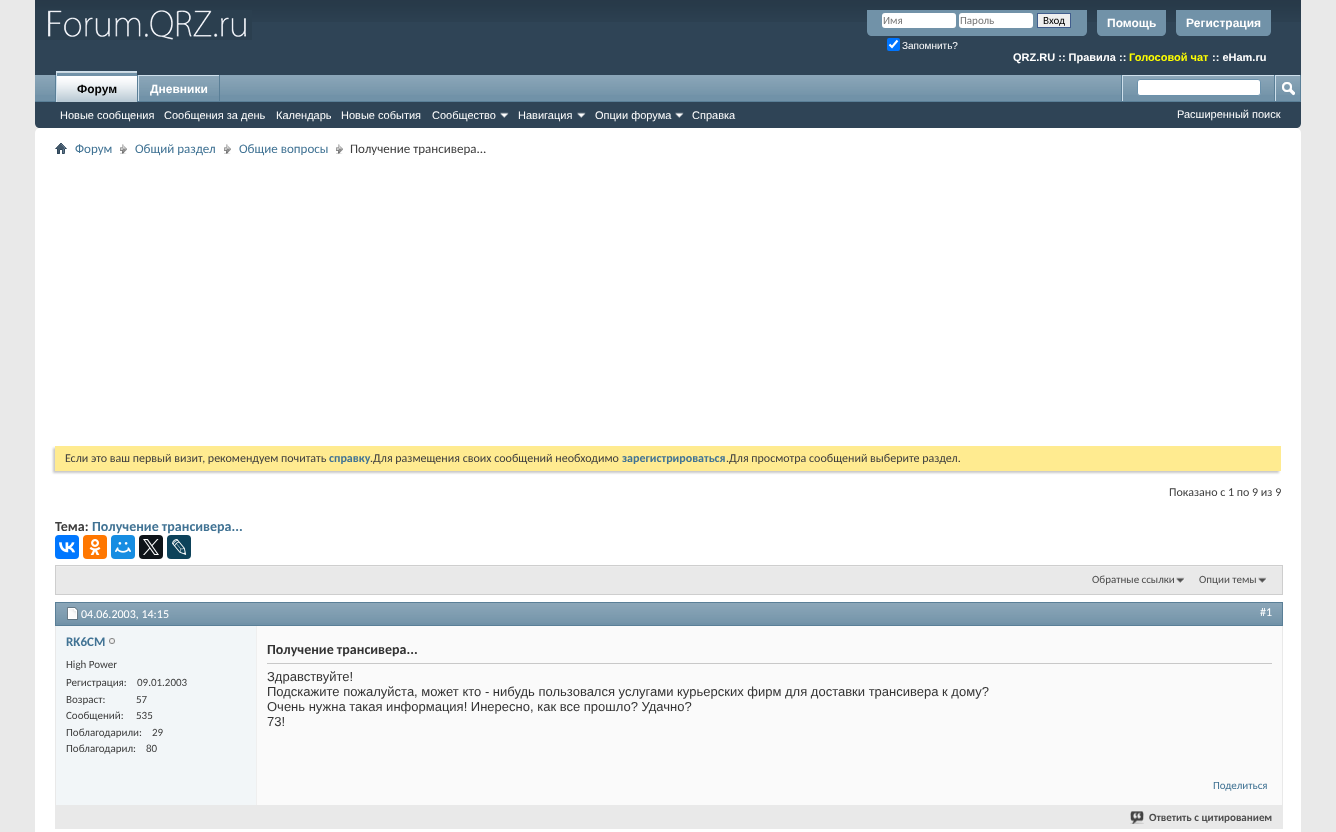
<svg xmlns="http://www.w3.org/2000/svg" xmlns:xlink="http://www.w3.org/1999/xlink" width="1336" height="832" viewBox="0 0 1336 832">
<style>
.cls-1{font:11px Carlito;fill:#777777}
.cls-2{font:11px Carlito;fill:#000000}
.cls-3{font:10px Liberation Sans;fill:#ffffff}
.cls-4{font:bold 12px Liberation Sans;fill:#ffffff}
.cls-5{font:bold 11px Liberation Sans;fill:#ffffff}
.cls-6{font:bold 11px Liberation Sans;fill:#ffff00}
.cls-7{font:bold 12px Liberation Sans;fill:#000000}
.cls-8{font:11px Liberation Sans;fill:#ffffff}
.cls-9{font:13px Carlito;fill:#417394}
.cls-10{font:13px Carlito;fill:#3e3e3e}
.cls-11{font:12px Carlito;fill:#3e3e3e}
.cls-12{font:bold 12px Carlito;fill:#417394}
.cls-13{font:bold 14px Carlito;fill:#3e3e3e}
.cls-14{font:bold 14px Carlito;fill:#417394}
.cls-15{font:11px Carlito;fill:#4e4e4e}
.cls-16{font:12px Carlito;fill:#ffffff}
.cls-17{font:bold 13px Carlito;fill:#417394}
.cls-18{font:11px Carlito;fill:#3e3e3e}
.cls-19{font:bold 14px Carlito;fill:#333333}
.cls-20{font:13px Liberation Sans;fill:#333333}
.cls-21{font:11px Carlito;fill:#417394}
.cls-22{font:bold 11px Carlito;fill:#4e4e4e}
</style>
<rect width="100%" height="100%" fill="#e9e9e9"/>
<path fill="#2f4456" d="M35 0H1301V123C1301 126 1299 128 1296 128H40C37 128 35 126 35 123Z"/>
<image xlink:href="image0.png" x="35" y="0" width="1266" height="22"/>
<image xlink:href="image1.png" x="35" y="10" width="217" height="30"/>
<path fill="#7192a8" d="M867 10H1087V31C1087 34 1085 36 1082 36H872C869 36 867 34 867 31Z"/>
<rect fill="#ffffff" x="882" y="13" width="74" height="15" rx="3"/>
<rect fill="#ffffff" x="959" y="13" width="74" height="15" rx="3"/>
<rect fill="#efefef" stroke="#415d8d" x="1037.5" y="13.5" width="33" height="14"/>
<rect fill="#0075ff" x="887" y="38" width="13" height="13" rx="2"/>
<path fill="none" stroke="#ffffff" stroke-width="2.1" d="M889.5 44.5L892 47L897.5 40.5"/>
<path fill="#7192a8" d="M1097 10H1166V31C1166 34 1164 36 1161 36H1102C1099 36 1097 34 1097 31Z"/>
<path fill="#7192a8" d="M1176 10H1271V31C1271 34 1269 36 1266 36H1181C1178 36 1176 34 1176 31Z"/>
<rect fill="#7192a8" x="35" y="75" width="1265" height="26"/>
<image xlink:href="image2.png" x="35" y="75" width="1265" height="20"/>
<rect fill="#5a7f97" x="137" y="75" width="1" height="26"/>
<rect fill="#5a7f97" x="55" y="75" width="1" height="26"/>
<rect fill="#5a7f97" x="219" y="75" width="1" height="27"/>
<rect fill="#cedfeb" x="138" y="75" width="81" height="1"/>
<rect fill="#cedfeb" x="138" y="75" width="1" height="27"/>
<rect fill="#5a7f97" x="35" y="101" width="1266" height="1"/>
<rect fill="#7192a8" x="57" y="72" width="80" height="30"/>
<image xlink:href="image3.png" x="57" y="72" width="80" height="30"/>
<rect fill="#cedfeb" x="56" y="71" width="81" height="1"/>
<rect fill="#cedfeb" x="56" y="71" width="1" height="31"/>
<rect fill="#7192a8" x="139" y="76" width="80" height="19"/>
<image xlink:href="image4.png" x="139" y="76" width="80" height="20"/>
<image xlink:href="image5.png" x="500" y="112" width="9" height="6"/>
<image xlink:href="image5.png" x="577" y="112" width="9" height="6"/>
<image xlink:href="image5.png" x="675" y="112" width="9" height="6"/>
<rect fill="#5a7f97" x="1121" y="75" width="1" height="26"/>
<rect fill="#cedfeb" x="1122" y="75" width="152" height="1"/>
<rect fill="#cedfeb" x="1122" y="75" width="1" height="26"/>
<rect fill="#ffffff" stroke="#6b91ab" x="1137.5" y="79.5" width="123" height="16" rx="2.5"/>
<rect fill="#5a7f97" x="1300" y="75" width="1" height="26"/>
<rect fill="#5a7f97" x="1274" y="75" width="1" height="26"/>
<rect fill="#cedfeb" x="1275" y="75" width="25" height="1"/>
<rect fill="#cedfeb" x="1275" y="75" width="1" height="26"/>
<image xlink:href="image6.png" x="1282" y="82" width="13" height="14"/>
<rect fill="#ffffff" x="35" y="128" width="1266" height="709" rx="5"/>
<image xlink:href="image7.png" x="55" y="143" width="12" height="11"/>
<image xlink:href="image8.png" x="120" y="144" width="7" height="10"/>
<image xlink:href="image8.png" x="224" y="144" width="7" height="10"/>
<image xlink:href="image8.png" x="336" y="144" width="7" height="10"/>
<rect fill="#c8c8c8" filter="blur(1px)" x="53" y="448" width="1226" height="25"/>
<rect fill="#ffeb90" x="55" y="446" width="1226" height="25"/>
<rect fill="#0077ff" x="55" y="535" width="24" height="24" rx="4"/>
<image xlink:href="image9.png" x="59" y="542" width="16" height="11"/>
<rect fill="#ff7700" x="83" y="535" width="24" height="24" rx="4"/>
<image xlink:href="image10.png" x="89" y="539" width="12" height="16"/>
<rect fill="#168de2" x="111" y="535" width="24" height="24" rx="4"/>
<image xlink:href="image11.png" x="115" y="542" width="16" height="11"/>
<rect fill="#0f1419" x="139" y="535" width="24" height="24" rx="4"/>
<image xlink:href="image12.png" x="143" y="539" width="16" height="16"/>
<rect fill="#0d425a" x="167" y="535" width="24" height="24" rx="4"/>
<image xlink:href="image13.png" x="172" y="539" width="15" height="16"/>
<rect fill="#e9e9e9" x="56" y="567" width="1226" height="27"/>
<rect fill="#ededed" x="55" y="566" width="1228" height="1"/>
<rect fill="none" stroke="#cecece" x="55.5" y="565.5" width="1227" height="29"/>
<image xlink:href="image14.png" x="1176" y="577" width="9" height="7"/>
<image xlink:href="image14.png" x="1258" y="577" width="9" height="7"/>
<rect fill="none" stroke="#e9e9e9" x="55.5" y="602.5" width="1227" height="226"/>
<rect fill="#7192a8" x="56" y="603" width="1226" height="22"/>
<image xlink:href="image15.png" x="56" y="603" width="1226" height="20"/>
<rect fill="none" stroke="#5a7f97" x="55.5" y="602.5" width="1227" height="23"/>
<image xlink:href="image16.png" x="67" y="607" width="11" height="13"/>
<rect fill="#f2f6f8" x="56" y="626" width="200" height="179"/>
<image xlink:href="image17.png" x="109" y="638" width="6" height="6"/>
<rect fill="#fafafa" x="257" y="626" width="1025" height="179"/>
<rect fill="#efefef" x="256" y="626" width="1" height="179"/>
<rect fill="#c8c8c8" x="267" y="663" width="1005" height="1"/>
<rect fill="#e9e9e9" x="56" y="805" width="1226" height="23"/>
<image xlink:href="image18.png" x="1130" y="811" width="14" height="13"/>
<text class="cls-1" x="883" y="24">Имя</text>
<text class="cls-1" x="960" y="24">Пароль</text>
<text class="cls-2" x="1043" y="24">Вход</text>
<text class="cls-3" x="902" y="49">Запомнить?</text>
<text class="cls-4" x="1107" y="27">Помощь</text>
<text class="cls-4" x="1186" y="27">Регистрация</text>
<text class="cls-5" x="1013" y="61">QRZ.RU :: Правила ::</text>
<text class="cls-6" x="1129" y="61">Голосовой чат</text>
<text class="cls-5" x="1212" y="61">:: eHam.ru</text>
<text class="cls-7" x="77" y="93">Форум</text>
<text class="cls-4" x="150" y="93">Дневники</text>
<text class="cls-8" x="60" y="119">Новые сообщения</text>
<text class="cls-8" x="164" y="119">Сообщения за день</text>
<text class="cls-8" x="276" y="119">Календарь</text>
<text class="cls-8" x="341" y="119">Новые события</text>
<text class="cls-8" x="432" y="119">Сообщество</text>
<text class="cls-8" x="518" y="119">Навигация</text>
<text class="cls-8" x="595" y="119">Опции форума</text>
<text class="cls-8" x="692" y="119">Справка</text>
<text class="cls-8" x="1177" y="118">Расширенный поиск</text>
<text class="cls-9" x="75" y="153">Форум</text>
<text class="cls-9" x="135" y="153">Общий раздел</text>
<text class="cls-9" x="239" y="153">Общие вопросы</text>
<text class="cls-10" x="350" y="153">Получение трансивера...</text>
<text class="cls-11" x="65" y="462">Если это ваш первый визит, рекомендуем почитать</text>
<text class="cls-12" x="329" y="462">справку</text>
<text class="cls-11" x="370" y="462">.Для размещения своих сообщений необходимо</text>
<text class="cls-12" x="622" y="462">зарегистрироваться</text>
<text class="cls-11" x="726" y="462">.Для просмотра сообщений выберите раздел.</text>
<text class="cls-11" x="1169" y="496">Показано с 1 по 9 из 9</text>
<text class="cls-13" x="55" y="531">Тема:</text>
<text class="cls-14" x="92" y="531">Получение трансивера...</text>
<text class="cls-15" x="1092" y="583">Обратные ссылки</text>
<text class="cls-15" x="1199" y="583">Опции темы</text>
<text class="cls-16" x="81" y="618">04.06.2003, 14:15</text>
<text class="cls-16" x="1260" y="616">#1</text>
<text class="cls-17" x="66" y="646">RK6CM</text>
<text class="cls-18"><tspan x="66" y="668">High Power</tspan><tspan x="66" y="686">Регистрация:</tspan></text>
<text class="cls-18" x="137" y="686">09.01.2003</text>
<text class="cls-18" x="66" y="703">Возраст:</text>
<text class="cls-18" x="136" y="703">57</text>
<text class="cls-18" x="66" y="719">Сообщений:</text>
<text class="cls-18" x="136" y="719">535</text>
<text class="cls-18" x="66" y="736">Поблагодарили:</text>
<text class="cls-18" x="152" y="736">29</text>
<text class="cls-18" x="66" y="752">Поблагодарил:</text>
<text class="cls-18" x="146" y="752">80</text>
<text class="cls-19" x="267" y="654">Получение трансивера...</text>
<text class="cls-20"><tspan x="267" y="681">Здравствуйте!</tspan><tspan x="267" y="696">Подскажите пожалуйста, может кто - нибудь пользовался услугами курьерских фирм для доставки трансивера к дому?</tspan><tspan x="267" y="711">Очень нужна такая информация! Инересно, как все прошло? Удачно?</tspan><tspan x="267" y="726">73!</tspan></text>
<text class="cls-21" x="1213" y="789">Поделиться</text>
<text class="cls-22" x="1149" y="821">Ответить с цитированием</text>
</svg>
